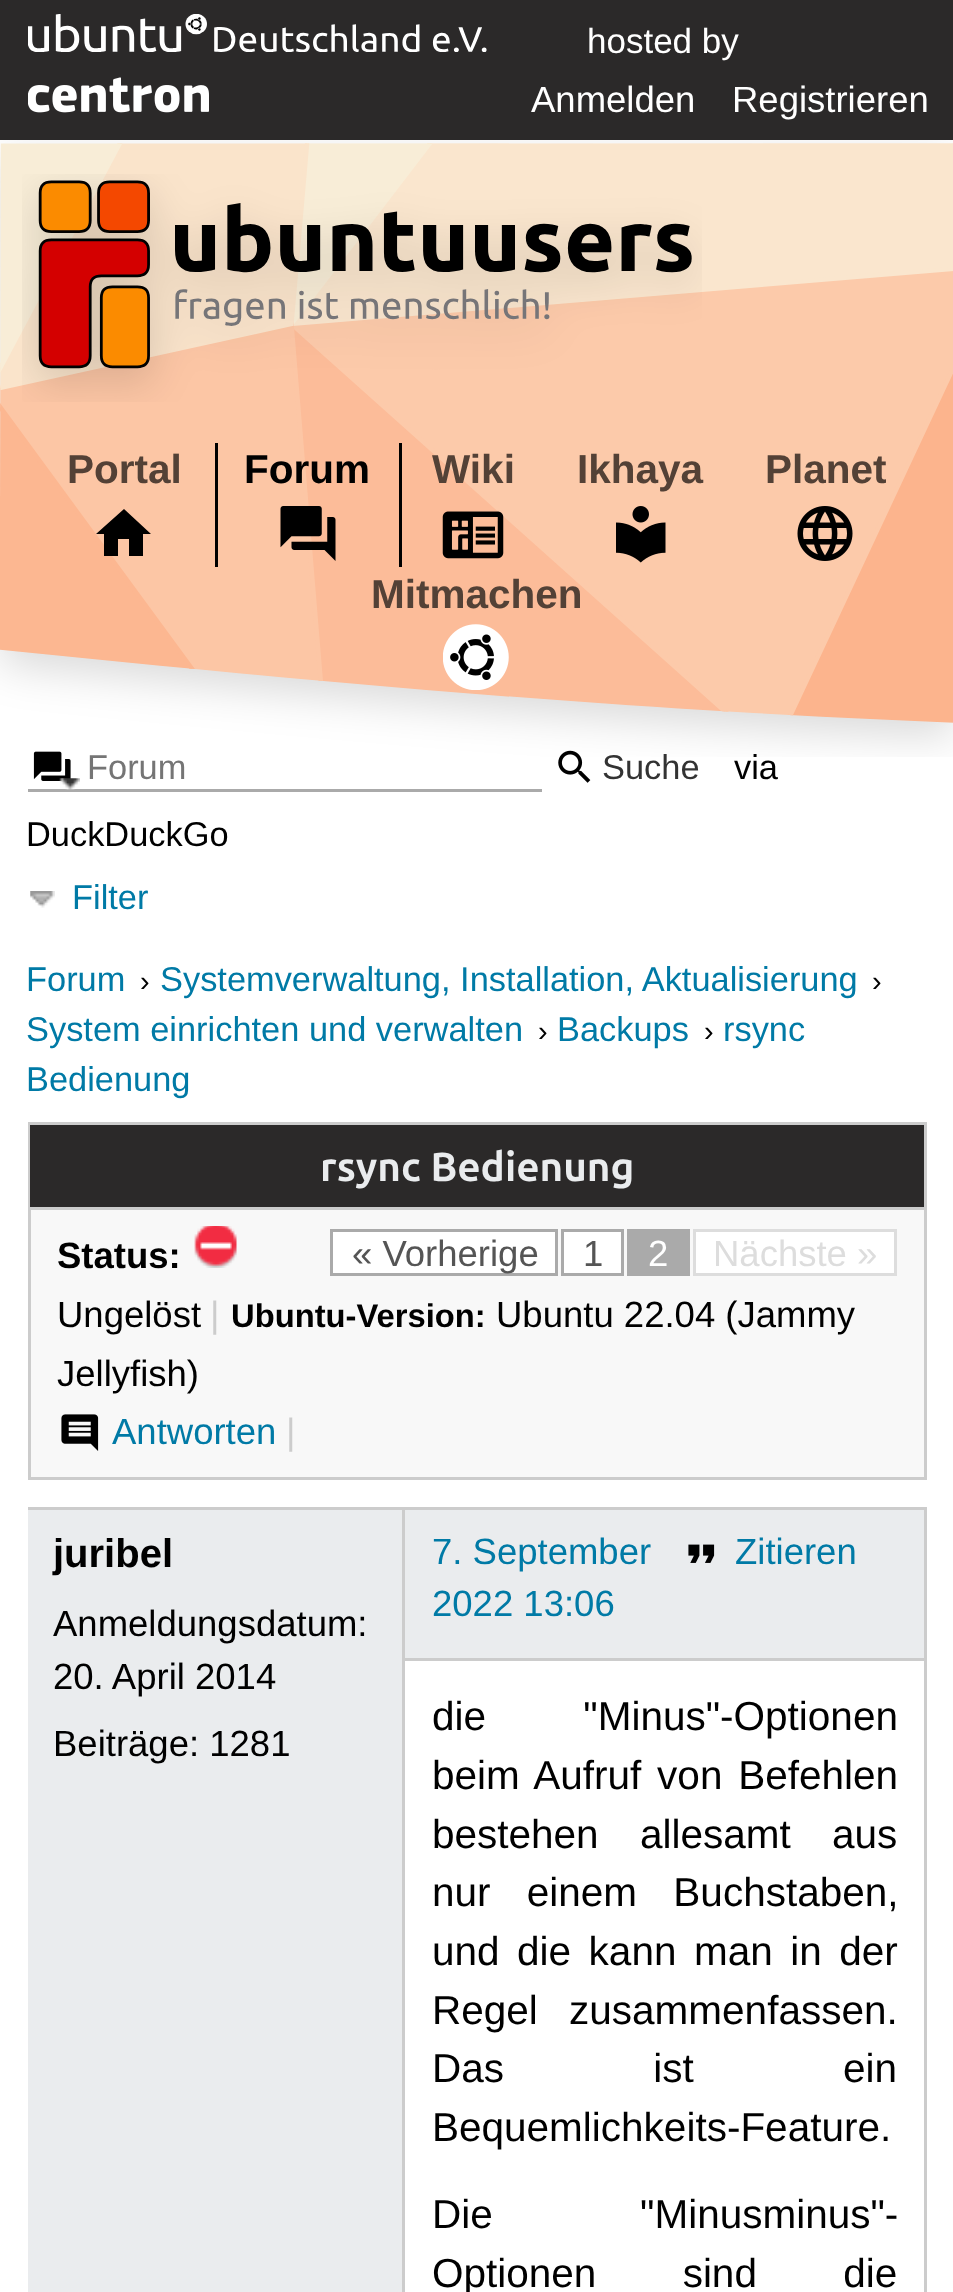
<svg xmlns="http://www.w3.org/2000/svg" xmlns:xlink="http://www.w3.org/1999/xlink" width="953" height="2292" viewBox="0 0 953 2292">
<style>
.cls-1{font:35px Liberation Sans;fill:#ffffff}
.cls-2{font:36.5px Liberation Sans;fill:#ffffff}
.cls-3{font:34.4px Liberation Sans;fill:#757575}
.cls-4{font:34.4px Liberation Sans;fill:#000000}
.cls-5{font:34.4px Liberation Sans;fill:#333333}
.cls-6{font:bold 40.5px Liberation Sans;fill:#534136}
.cls-7{font:bold 40.5px Liberation Sans;fill:#000000}
.cls-8{font:34.4px Liberation Sans;fill:#007aa6}
.cls-9{font:29px Liberation Sans;fill:#000000}
.cls-10{font:bold 40.5px Ubuntu;fill:#eaecee}
.cls-11{font:bold 36.5px Liberation Sans;fill:#000000}
.cls-12{font:36.5px Liberation Sans;fill:#555555}
.cls-13{font:36.5px Liberation Sans;fill:#dddddd}
.cls-14{font:36.5px Liberation Sans;fill:#000000}
.cls-15{font:36.5px Liberation Sans;fill:#cccccc}
.cls-16{font:bold 32.75px Liberation Sans;fill:#000000}
.cls-17{font:36.5px Liberation Sans;fill:#007aa6}
.cls-18{font:bold 40px Liberation Sans;fill:#000000}
.cls-19{font:40.5px Liberation Sans;fill:#000000}
</style>
<rect width="100%" height="100%" fill="#ffffff"/>
<rect fill="#2b2929" x="0" y="0" width="953" height="140"/>
<image xlink:href="image0.png" x="28" y="14" width="459" height="38"/>
<image xlink:href="image1.png" x="28" y="77" width="181" height="36"/>
<image xlink:href="image9.png" x="33" y="751" width="38" height="30"/>
<rect fill="#aaaaaa" x="28" y="789" width="514" height="3"/>
<image xlink:href="image11.png" x="59" y="778" width="21" height="12"/>
<image xlink:href="image12.png" x="30" y="891" width="25" height="17"/>
<rect fill="#f8f8f8" x="31" y="1210" width="893" height="267"/>
<rect fill="none" stroke="#cccccc" stroke-width="3" x="29.5" y="1123.5" width="896" height="355"/>
<rect fill="#2b2929" x="30" y="1125" width="894" height="82"/>
<rect fill="#cccccc" x="30" y="1207" width="894" height="3"/>
<image xlink:href="image13.png" x="194" y="1226" width="43" height="42"/>
<rect fill="#ffffff" stroke="#aaaaaa" stroke-width="3" x="331.5" y="1230.5" width="225" height="44"/>
<rect fill="#ffffff" stroke="#aaaaaa" stroke-width="3" x="562.5" y="1230.5" width="60" height="44"/>
<rect fill="#aaaaaa" x="627" y="1229" width="63" height="47"/>
<rect fill="#ffffff" stroke="#dddddd" stroke-width="3" x="694.5" y="1230.5" width="201" height="44"/>
<image xlink:href="image14.png" x="61" y="1414" width="38" height="37"/>
<rect fill="#cccccc" x="28" y="1507" width="899" height="3"/>
<rect fill="#cccccc" x="924" y="1507" width="3" height="785"/>
<rect fill="#cccccc" x="404" y="1658" width="520" height="3"/>
<rect fill="#cccccc" x="402" y="1507" width="3" height="785"/>
<rect fill="#eaecee" x="28" y="1510" width="374" height="782"/>
<rect fill="#eaecee" x="405" y="1510" width="519" height="148"/>
<image xlink:href="image15.png" x="688" y="1544" width="27" height="19"/>
<text class="cls-1" x="587" y="53">hosted by</text>
<text class="cls-2" x="531" y="112">Anmelden</text>
<text class="cls-2" x="732" y="112">Registrieren</text>
<text class="cls-3" x="87" y="779">Forum</text>
<text class="cls-4" x="734" y="779">via</text>
<image xlink:href="image2.png" x="0" y="140" width="953" height="617"/>
<text class="cls-5" x="602" y="779">Suche</text>
<image xlink:href="image10.png" x="558" y="750" width="33" height="33"/>
<text class="cls-6" x="371" y="608">Mitmachen</text>
<image xlink:href="image8.png" x="443" y="624" width="66" height="66"/>
<text class="cls-6" x="765" y="483">Planet</text>
<image xlink:href="image7.png" x="797" y="506" width="56" height="55"/>
<text class="cls-6" x="577" y="483">Ikhaya</text>
<image xlink:href="image6.png" x="616" y="506" width="50" height="57"/>
<text class="cls-6" x="432" y="483">Wiki</text>
<image xlink:href="image5.png" x="442" y="511" width="62" height="48"/>
<text class="cls-7" x="244" y="483">Forum</text>
<image xlink:href="image4.png" x="280" y="506" width="56" height="55"/>
<rect fill="#000000" x="215" y="443" width="3" height="124"/>
<rect fill="#000000" x="399" y="443" width="3" height="124"/>
<text class="cls-6" x="67" y="483">Portal</text>
<path fill="#000000" d="M118 556V539H129V556H143V534H151L124 509L96 534H104V556Z"/>
<image xlink:href="image3.png" x="22" y="174" width="680" height="228"/>
<text class="cls-4" x="26" y="846">DuckDuckGo</text>
<text class="cls-8" x="72" y="909">Filter</text>
<text class="cls-8" x="26" y="991">Forum</text>
<text class="cls-9" x="140" y="991">›</text>
<text class="cls-8" x="160" y="991">Systemverwaltung, Installation, Aktualisierung</text>
<text class="cls-9" x="872" y="991">›</text>
<text class="cls-8" x="26" y="1041">System einrichten und verwalten</text>
<text class="cls-9" x="538" y="1041">›</text>
<text class="cls-8" x="557" y="1041">Backups</text>
<text class="cls-9" x="704" y="1041">›</text>
<text class="cls-8" x="723" y="1041">rsync</text>
<text class="cls-8" x="26" y="1091">Bedienung</text>
<text class="cls-10" x="320" y="1181">rsync Bedienung</text>
<text class="cls-11" x="57" y="1268">Status:</text>
<text class="cls-12" x="352" y="1266">« Vorherige</text>
<text class="cls-12" x="583" y="1266">1</text>
<text class="cls-2" x="648" y="1266">2</text>
<text class="cls-13" x="713" y="1266">Nächste »</text>
<text class="cls-14" x="57" y="1327">Ungelöst</text>
<text class="cls-15" x="210" y="1327">|</text>
<text class="cls-16" x="231" y="1327">Ubuntu-Version:</text>
<text class="cls-14" x="496" y="1327">Ubuntu 22.04 (Jammy</text>
<text class="cls-14" x="57" y="1386">Jellyfish)</text>
<text class="cls-17" x="112" y="1444">Antworten</text>
<text class="cls-15" x="286" y="1444">|</text>
<text class="cls-18" x="53" y="1567">juribel</text>
<text class="cls-14"><tspan x="53" y="1636">Anmeldungsdatum:</tspan><tspan x="53" y="1689">20. April 2014</tspan><tspan x="53" y="1756">Beiträge: 1281</tspan></text>
<text class="cls-17" x="432" y="1564">7. September</text>
<text class="cls-17" x="735" y="1564">Zitieren</text>
<text class="cls-17" x="432" y="1616">2022 13:06</text>
<text class="cls-19"><tspan x="432" y="1730" word-spacing="86">die "Minus"-Optionen</tspan><tspan x="432" y="1789" word-spacing="4.5">beim Aufruf von Befehlen</tspan><tspan x="432" y="1848" word-spacing="30">bestehen allesamt aus</tspan><tspan x="432" y="1906" word-spacing="25">nur einem Buchstaben,</tspan><tspan x="432" y="1965" word-spacing="6.25">und die kann man in der</tspan><tspan x="432" y="2024" word-spacing="20">Regel zusammenfassen.</tspan><tspan x="432" y="2082" word-spacing="138">Das ist ein</tspan><tspan x="432" y="2141">Bequemlichkeits-Feature.</tspan></text>
<text class="cls-19"><tspan x="432" y="2228" word-spacing="136">Die "Minusminus"-</tspan><tspan x="432" y="2287" word-spacing="75">Optionen sind die</tspan></text>
</svg>
